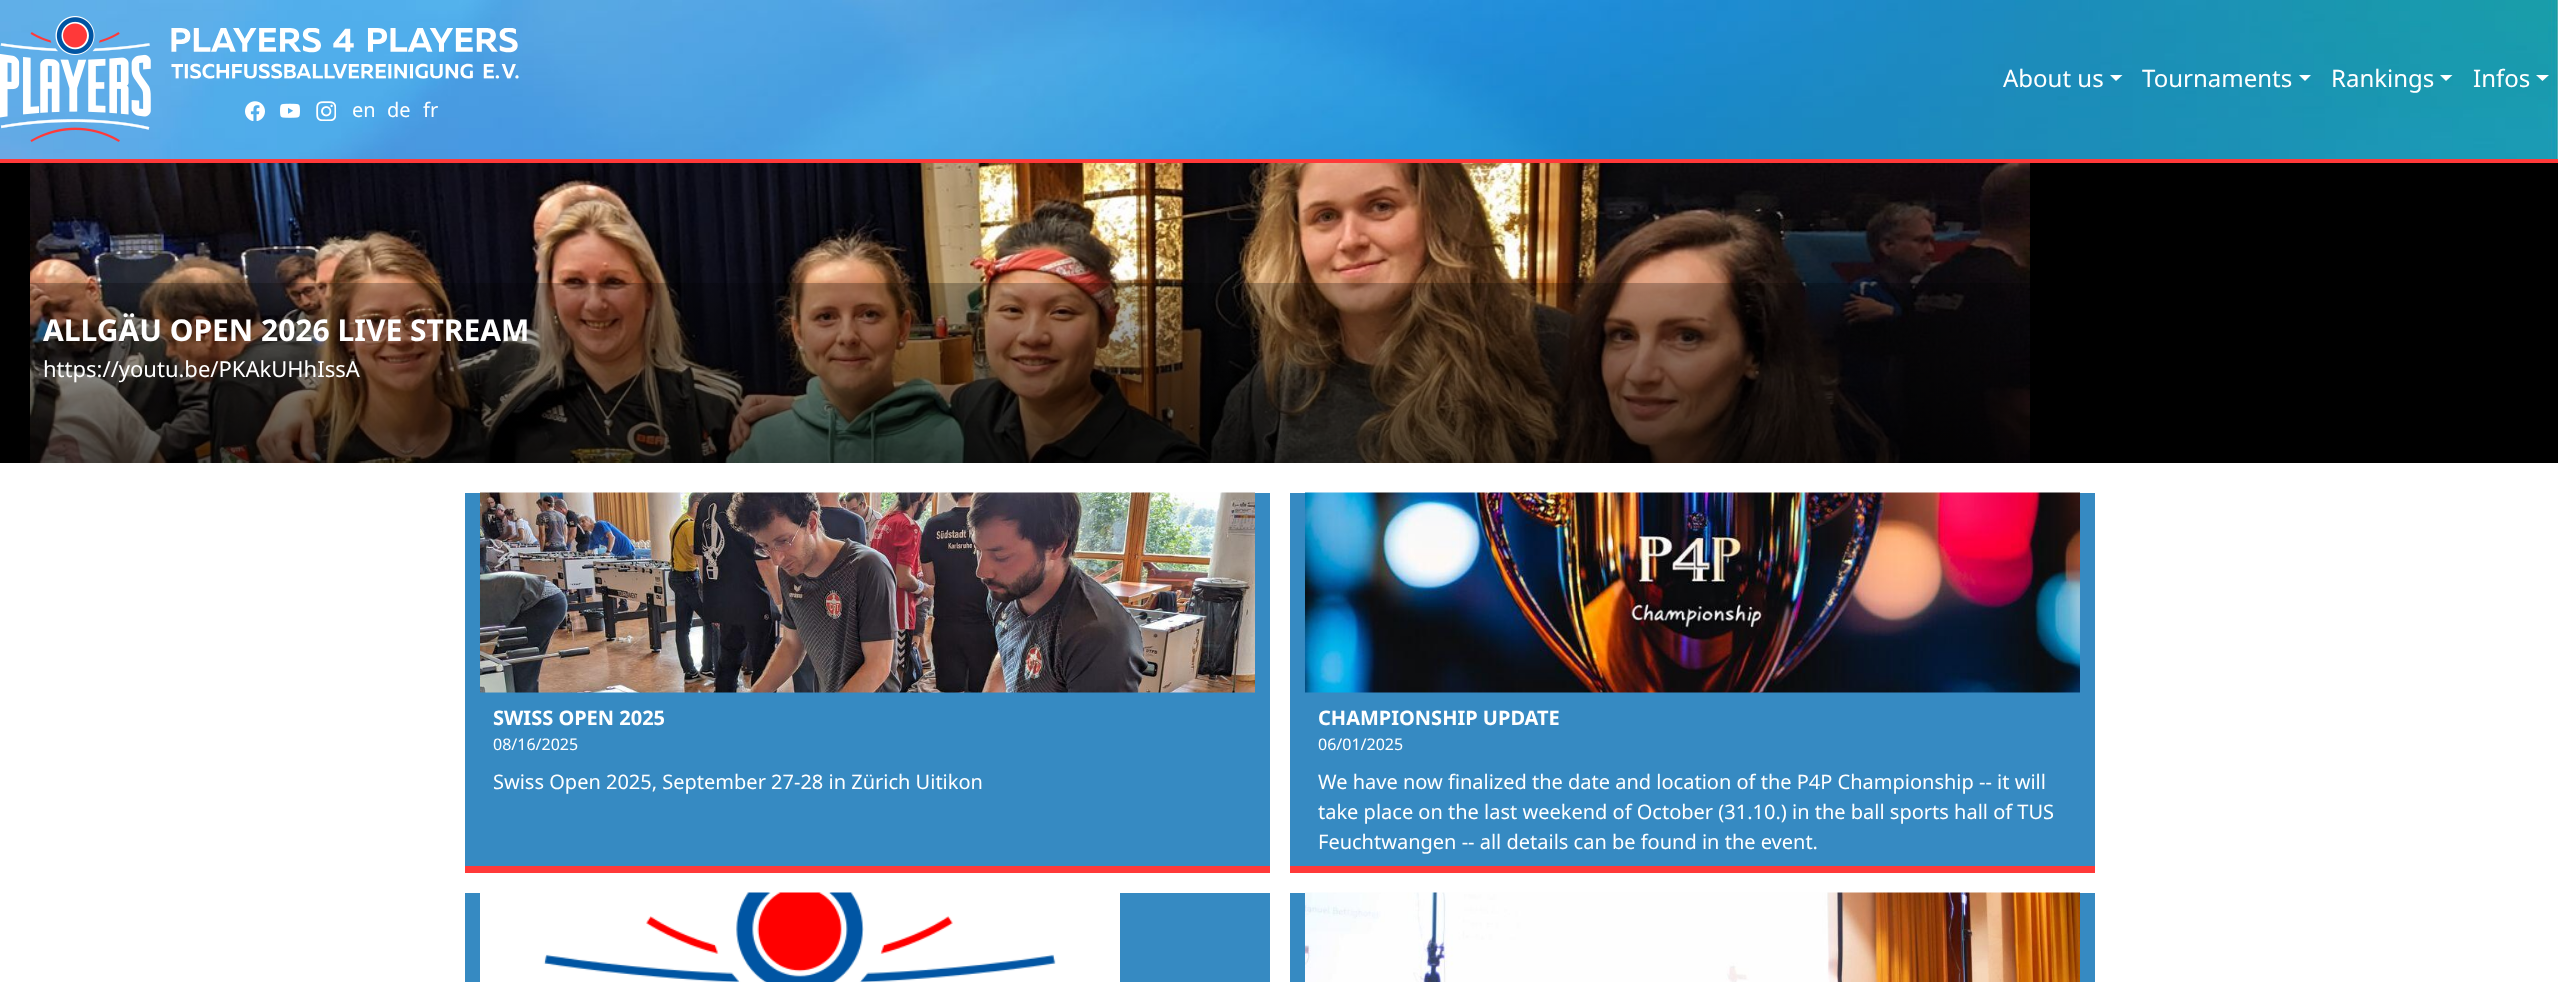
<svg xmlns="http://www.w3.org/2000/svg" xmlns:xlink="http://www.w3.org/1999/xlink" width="2558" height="982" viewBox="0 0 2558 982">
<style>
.cls-1{font:24px Noto Sans;fill:#ffffff}
.cls-2{font:20px Noto Sans;fill:#ffffff}
.cls-3{font:bold 30px Noto Sans;fill:#ffffff}
.cls-4{font:22px Noto Sans;fill:#ffffff}
.cls-5{font:bold 20px Noto Sans;fill:#ffffff}
.cls-6{font:16px Noto Sans;fill:#ffffff}
</style>
<defs>
<linearGradient id="g1" gradientUnits="userSpaceOnUse" x1="1279" y1="282" x2="1279" y2="463"><stop offset="0" stop-color="#000000" stop-opacity="0.25"/><stop offset="1" stop-color="#000000" stop-opacity="0.7"/></linearGradient>
</defs>
<rect width="100%" height="100%" fill="#ffffff"/>
<image xlink:href="image0.png" x="0" y="0" width="2558" height="159"/>
<rect fill="#ff3939" x="0" y="159" width="2558" height="4"/>
<image xlink:href="image1.png" x="0" y="16" width="151" height="126"/>
<path fill="#ffffff" d="M2110 75H2122.5L2116 81Z"/>
<path fill="#ffffff" d="M2299 75H2311L2305 81Z"/>
<path fill="#ffffff" d="M2440 75H2452.5L2446 81Z"/>
<path fill="#ffffff" d="M2536 75H2549L2542.5 81Z"/>
<image xlink:href="image2.png" x="171" y="28" width="348" height="51"/>
<image xlink:href="image3.png" x="245" y="101" width="20" height="20"/>
<image xlink:href="image4.png" x="280" y="103" width="20" height="15"/>
<image xlink:href="image5.png" x="316" y="101" width="20" height="20"/>
<rect fill="#000000" x="0" y="163" width="2558" height="300"/>
<image xlink:href="image6.png" x="30" y="163" width="2000" height="300"/>
<rect fill="url(#g1)" x="30" y="283" width="2000" height="180"/>
<rect fill="#368ac2" x="465" y="493" width="805" height="373"/>
<rect fill="#ff3939" x="465" y="866" width="805" height="7"/>
<image xlink:href="image7.png" x="480" y="492" width="775" height="201"/>
<rect fill="#368ac2" x="1290" y="493" width="805" height="373"/>
<rect fill="#ff3939" x="1290" y="866" width="805" height="7"/>
<image xlink:href="image8.png" x="1305" y="492" width="775" height="201"/>
<rect fill="#368ac2" x="465" y="893" width="805" height="89"/>
<image xlink:href="image9.png" x="480" y="892" width="640" height="90"/>
<rect fill="#368ac2" x="1290" y="893" width="805" height="89"/>
<image xlink:href="image10.png" x="1305" y="892" width="775" height="90"/>
<text class="cls-1" x="2003" y="87">About us</text>
<text class="cls-1" x="2142" y="87">Tournaments</text>
<text class="cls-1" x="2331" y="87">Rankings</text>
<text class="cls-1" x="2473" y="87">Infos</text>
<text class="cls-2" x="352" y="117">en</text>
<text class="cls-2" x="387" y="117">de</text>
<text class="cls-2" x="423" y="117">fr</text>
<text class="cls-3" x="43" y="341">ALLGÄU OPEN 2026 LIVE STREAM</text>
<text class="cls-4" x="43" y="377">https://youtu.be/PKAkUHhIssA</text>
<text class="cls-5" x="493" y="725">SWISS OPEN 2025</text>
<text class="cls-6" x="493" y="750">08/16/2025</text>
<text class="cls-2" x="493" y="789">Swiss Open 2025, September 27-28 in Zürich Uitikon</text>
<text class="cls-5" x="1318" y="725">CHAMPIONSHIP UPDATE</text>
<text class="cls-6" x="1318" y="750">06/01/2025</text>
<text class="cls-2"><tspan x="1318" y="789">We have now finalized the date and location of the P4P Championship -- it will</tspan><tspan x="1318" y="819">take place on the last weekend of October (31.10.) in the ball sports hall of TUS</tspan><tspan x="1318" y="849">Feuchtwangen -- all details can be found in the event.</tspan></text>
</svg>
